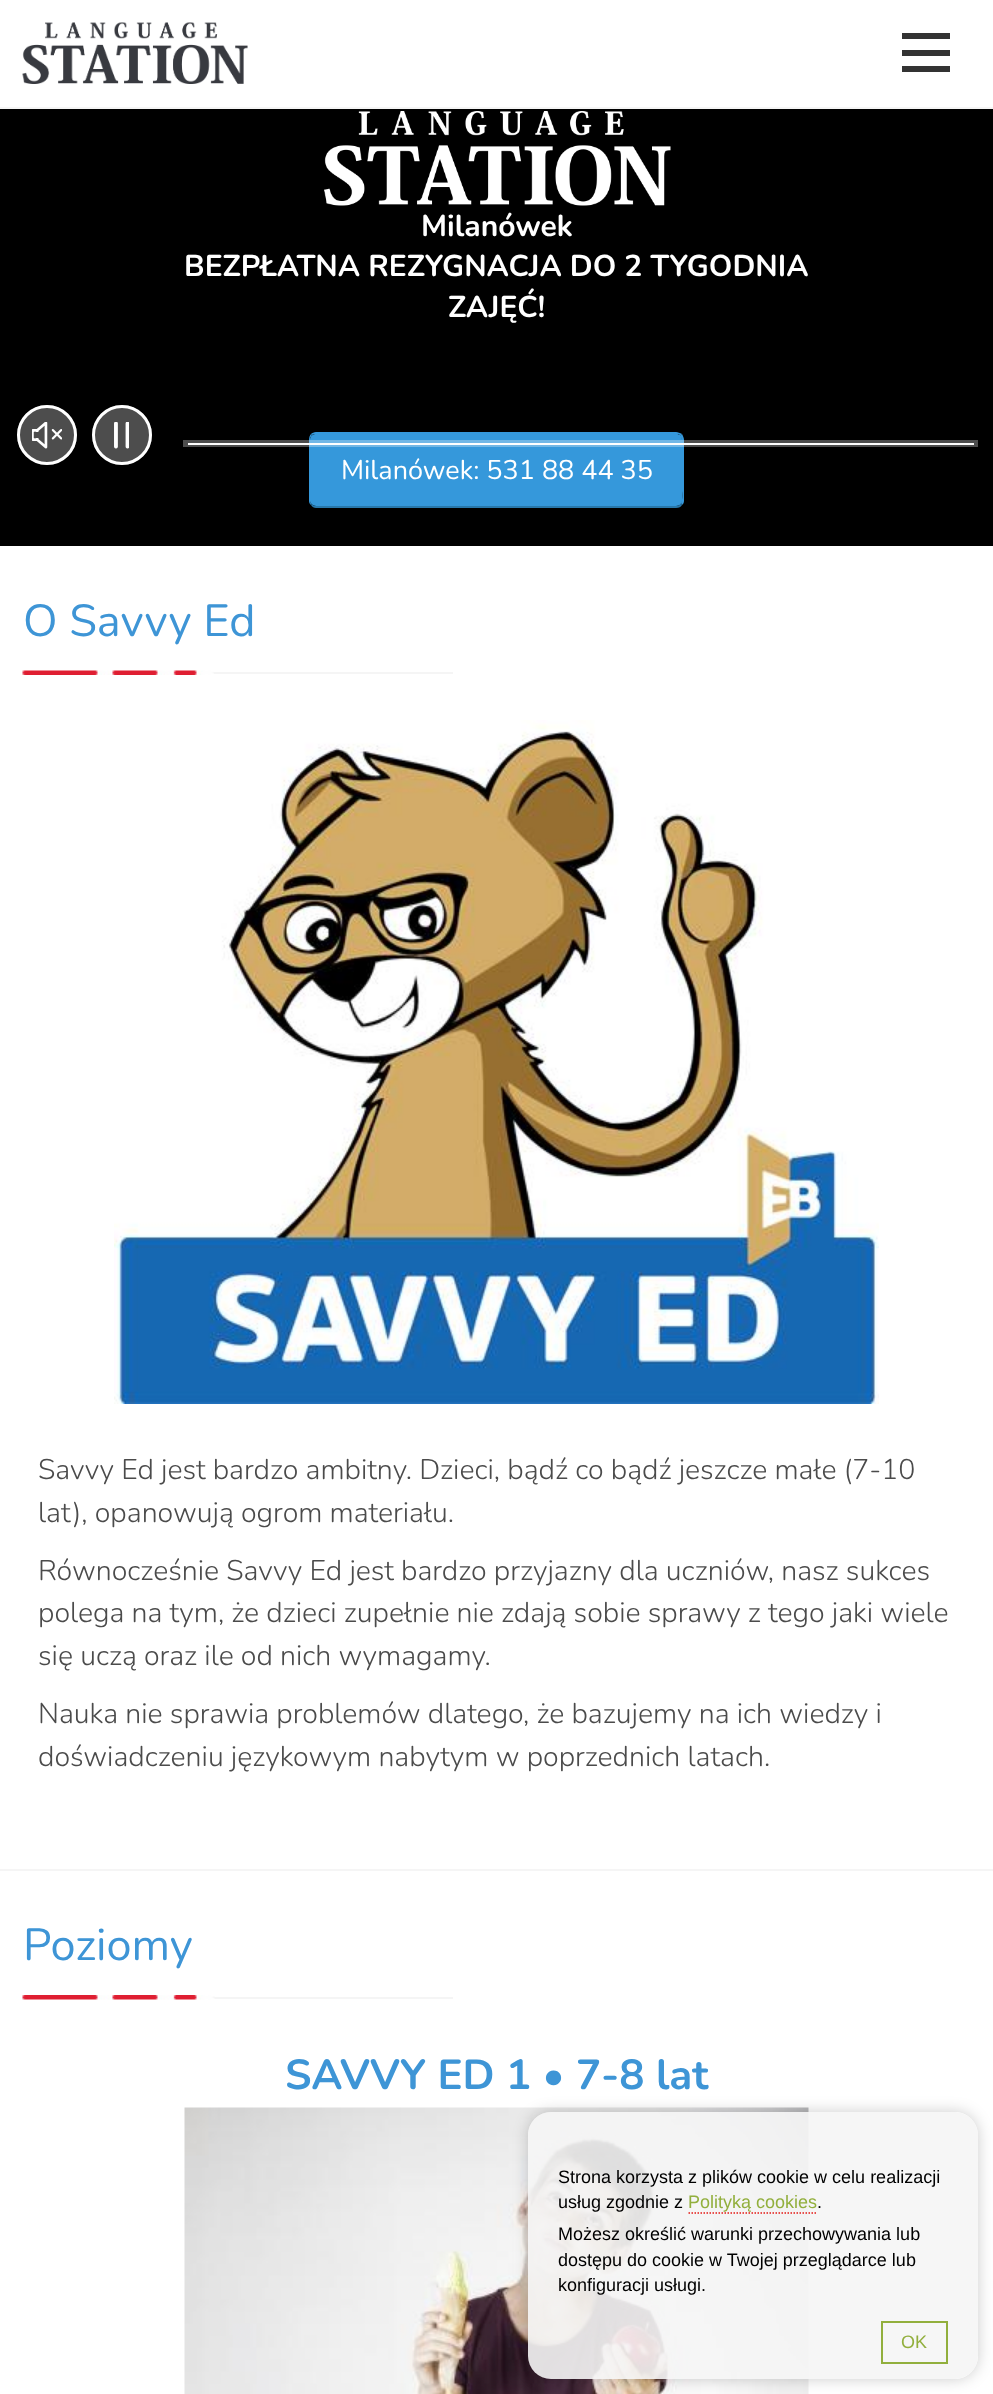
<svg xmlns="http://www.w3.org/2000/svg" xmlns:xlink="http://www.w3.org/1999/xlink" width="993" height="2394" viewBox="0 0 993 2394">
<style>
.cls-1{font:bold 30px Nunito;fill:#ffffff}
.cls-2{font:27px Nunito;fill:#ffffff}
.cls-3{font:45px Nunito;fill:#3e95d6}
.cls-4{font:300 28.5px Nunito;fill:#4b4b4b}
.cls-5{font:bold 42px Nunito;fill:#3e95d6}
.cls-6{font:18px Liberation Sans;fill:#000000}
.cls-7{font:18px Liberation Sans;fill:#92af3d}
</style>
<defs>
<clipPath id="clip1"><path d="M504 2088H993V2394H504ZM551 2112H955C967.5 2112 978 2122.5 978 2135V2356C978 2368.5 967.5 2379 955 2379H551C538.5 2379 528 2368.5 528 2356V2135C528 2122.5 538.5 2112 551 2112Z" clip-rule="evenodd"/></clipPath>
</defs>
<rect width="100%" height="100%" fill="#ffffff"/>
<rect fill="#f5f5f5" x="0" y="107" width="993" height="2"/>
<image xlink:href="image0.png" x="22" y="22" width="226" height="62"/>
<rect fill="#333333" x="902" y="50" width="48" height="6"/>
<rect fill="#333333" x="902" y="33" width="48" height="6"/>
<rect fill="#333333" x="902" y="66" width="48" height="6"/>
<rect fill="#000000" x="0" y="109" width="993" height="437"/>
<image xlink:href="image1.png" x="324" y="111" width="347" height="95"/>
<path fill="#3598db" d="M316 434H676C680 434 682 436 682 440V501C682 503 680 506 676 506H316C313 506 310 503 310 501V440C310 436 313 434 316 434Z"/>
<path fill="#3598db" d="M316 432C314 432 312 433 311 434L312 435C313 434 315 434 316 434H676C678 434 680 434 680 436L682 434C680 433 678 432 676 432Z"/>
<path fill="#3598db" d="M684 501V440C684 438 683 436 682 434L680 436L682 439V491C682 491 683 500 681 503L682 505C683 504 684 503 684 501Z"/>
<path fill="#2878ab" d="M682 505C681 507 679 508 676 508H316C314 508 312 507 311 505V504C313 505 314 506 316 506H676C679 506 680 505 681 503Z"/>
<path fill="#3598db" d="M309 440V501C309 503 310 504 311 505V504L310 501V438L312 435L311 434C310 435 309 437 309 440Z"/>
<circle fill="#4d4d4d" cx="47" cy="435" r="30"/>
<image xlink:href="image2.png" x="32" y="422" width="30" height="27"/>
<circle fill="none" stroke="#ffffff" stroke-width="3" cx="47" cy="435" r="28.5"/>
<circle fill="#4d4d4d" cx="122" cy="435" r="30"/>
<image xlink:href="image3.png" x="114" y="422" width="15" height="27"/>
<circle fill="none" stroke="#ffffff" stroke-width="3" cx="122" cy="435" r="28.5"/>
<rect fill="#ffffff" fill-opacity="0.3" x="183" y="440" width="795" height="7"/>
<rect fill="#ffffff" x="188" y="443" width="786" height="2"/>
<rect fill="#f5f5f5" x="0" y="1869" width="993" height="2"/>
<image xlink:href="image4.png" x="22" y="670" width="192" height="5"/>
<rect fill="#f5f5f5" x="214" y="672" width="239" height="2"/>
<image xlink:href="image5.png" x="114" y="720" width="765" height="684"/>
<rect fill="#f5f5f5" x="214" y="1997" width="239" height="2"/>
<image xlink:href="image6.png" x="22" y="1995" width="193" height="5"/>
<image xlink:href="image7.png" x="184" y="2107" width="625" height="287"/>
<g clip-path="url(#clip1)">
<rect fill="#000000" fill-opacity="0.2" filter="blur(7.5px)" x="528" y="2112" width="450" height="267" rx="23"/>
</g>
<rect fill="#f5f5f5" fill-opacity="0.9" x="528" y="2112" width="450" height="267" rx="23"/>
<path fill="none" stroke="#e31814" stroke-width="1.5" stroke-dasharray="1.5 1.5" d="M688.5 2213H817.5"/>
<rect fill="none" stroke="#92af3d" stroke-width="2" x="882" y="2322" width="65" height="41"/>
<text class="cls-1" x="421" y="236">Milanówek</text>
<text class="cls-1" x="184" y="276">BEZPŁATNA REZYGNACJA DO 2 TYGODNIA</text>
<text class="cls-1" x="448" y="317">ZAJĘĆ!</text>
<text class="cls-2" x="341" y="479">Milanówek: 531 88 44 35</text>
<text class="cls-3" x="23" y="636">O Savvy Ed</text>
<text class="cls-4"><tspan x="38" y="1479">Savvy Ed jest bardzo ambitny. Dzieci, bądź co bądź jeszcze małe (7-10</tspan><tspan x="38" y="1522">lat), opanowują ogrom materiału.</tspan></text>
<text class="cls-4"><tspan x="38" y="1580">Równocześnie Savvy Ed jest bardzo przyjazny dla uczniów, nasz sukces</tspan><tspan x="38" y="1622">polega na tym, że dzieci zupełnie nie zdają sobie sprawy z tego jaki wiele</tspan><tspan x="38" y="1665">się uczą oraz ile od nich wymagamy.</tspan></text>
<text class="cls-4"><tspan x="38" y="1723">Nauka nie sprawia problemów dlatego, że bazujemy na ich wiedzy i</tspan><tspan x="38" y="1766">doświadczeniu językowym nabytym w poprzednich latach.</tspan></text>
<text class="cls-3" x="23" y="1960">Poziomy</text>
<text class="cls-5" x="285" y="2089">SAVVY ED 1 • 7-8 lat</text>
<text class="cls-6"><tspan x="558" y="2183">Strona korzysta z plików cookie w celu realizacji</tspan><tspan x="558" y="2208">usług zgodnie z</tspan></text>
<text class="cls-7" x="688" y="2208">Polityką cookies</text>
<text class="cls-6" x="817" y="2208">.</text>
<text class="cls-6"><tspan x="558" y="2240">Możesz określić warunki przechowywania lub</tspan><tspan x="558" y="2266">dostępu do cookie w Twojej przeglądarce lub</tspan><tspan x="558" y="2291">konfiguracji usługi.</tspan></text>
<text class="cls-7" x="901" y="2348">OK</text>
</svg>
